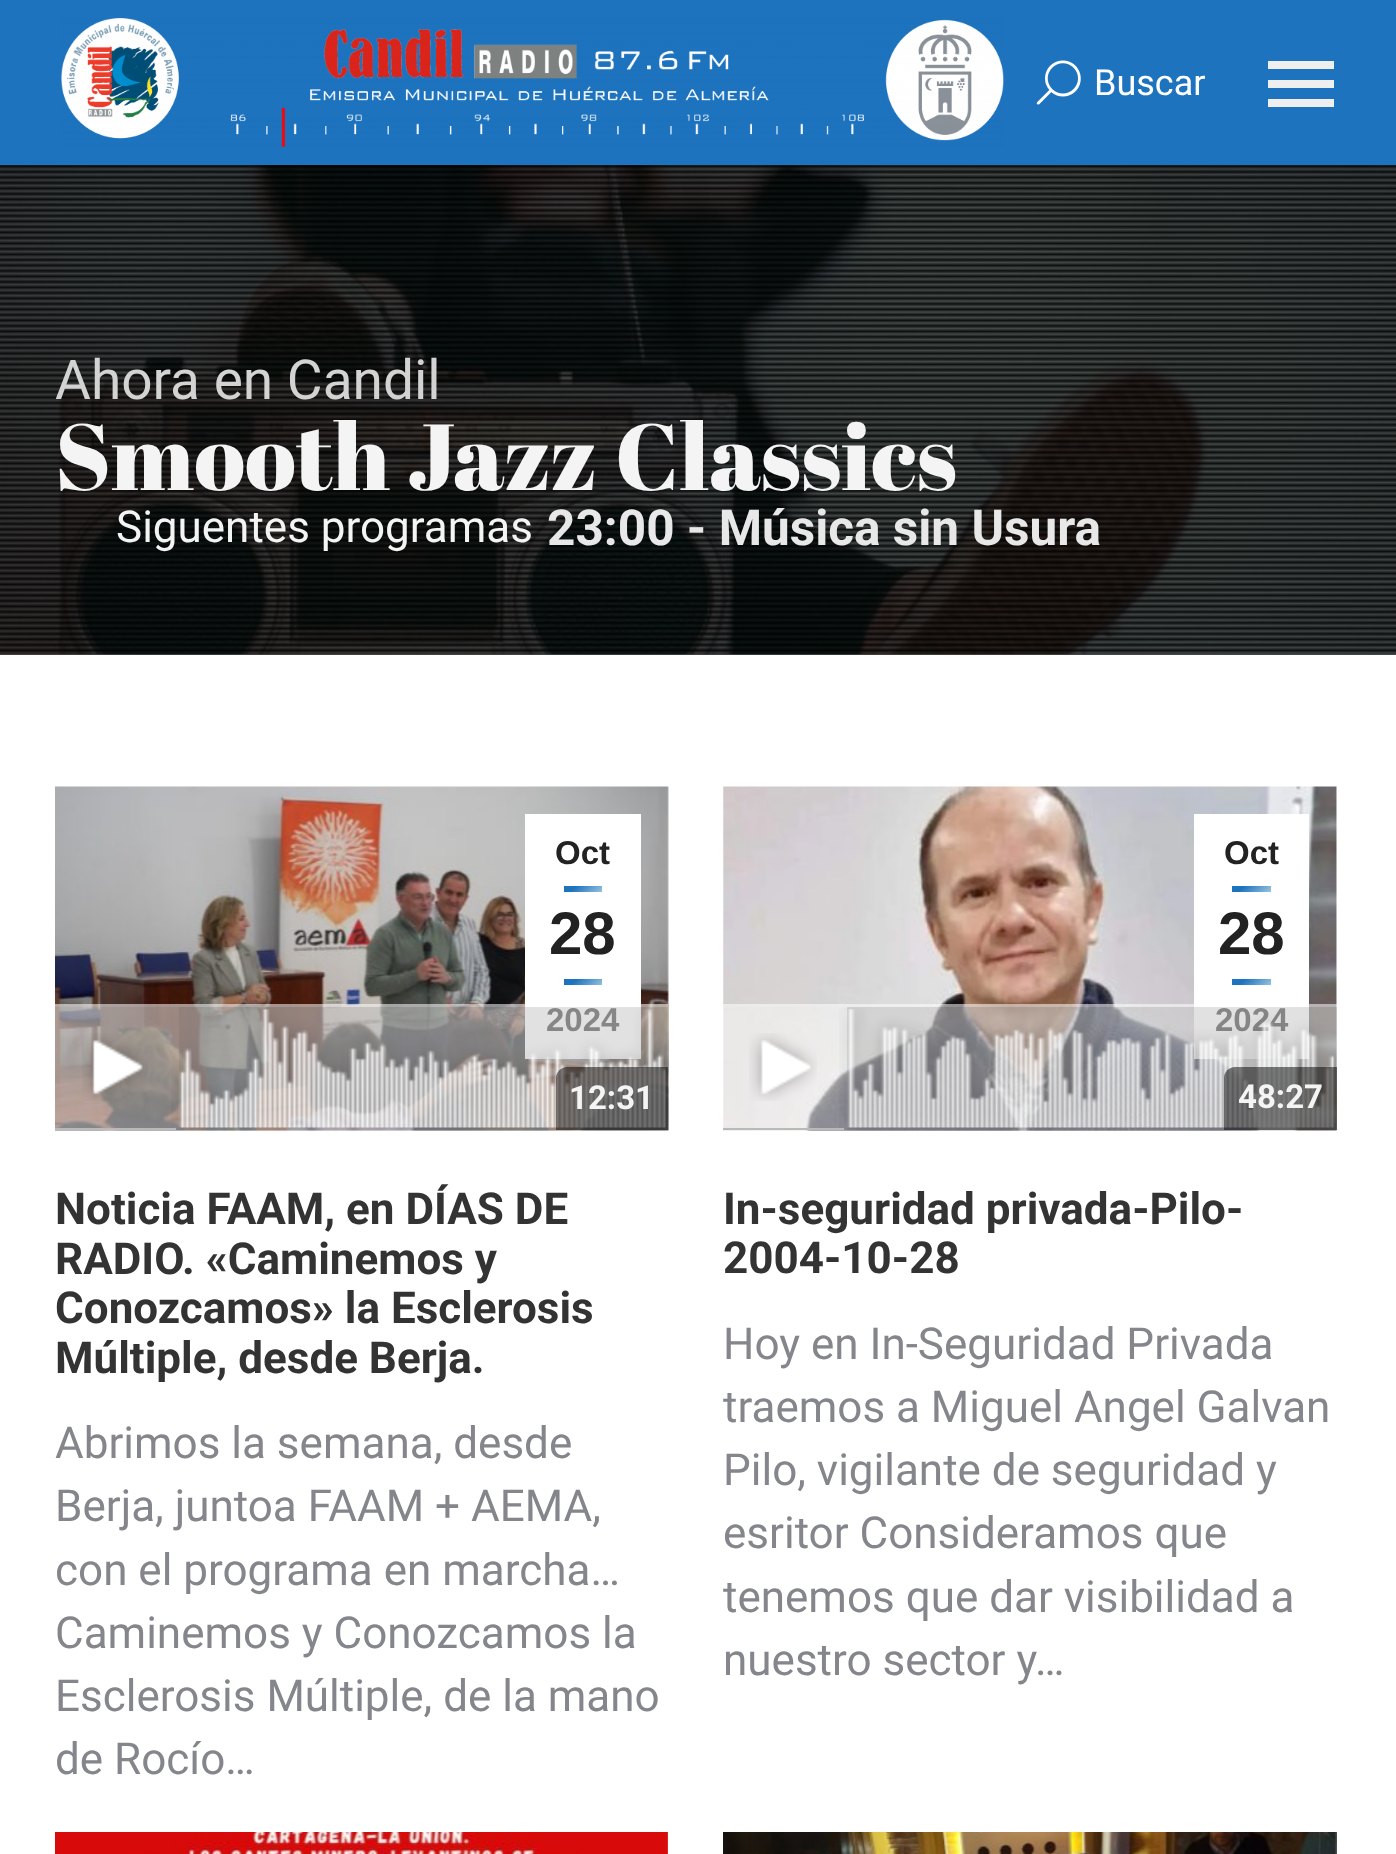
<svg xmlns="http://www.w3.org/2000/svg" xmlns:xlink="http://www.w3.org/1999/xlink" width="1396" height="1854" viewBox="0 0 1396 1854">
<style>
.cls-1{font:36px Roboto;fill:#ffffff}
.cls-2{font:55px Roboto;fill:#d3d3d3}
.cls-3{font:93.5px Abril Fatface;fill:#f4f4f4}
.cls-4{font:44px Roboto;fill:#f4f4f4}
.cls-5{font:bold 49.5px Roboto;fill:#e8e8e8}
.cls-6{font:bold 33px Liberation Sans;fill:#222222}
.cls-7{font:bold 60px Liberation Sans;fill:#222222}
.cls-8{font:bold 33px Roboto;fill:#f4f4f4}
.cls-9{font:bold 44px Roboto;fill:#333333}
.cls-10{font:44px Roboto;fill:#85868c}
</style>
<defs>
<linearGradient id="g1" gradientUnits="userSpaceOnUse" x1="572" y1="877" x2="594" y2="899"><stop offset="0.3" stop-color="#1e73be"/><stop offset="1" stop-color="#92bfdd"/></linearGradient>
<linearGradient id="g2" gradientUnits="userSpaceOnUse" x1="572" y1="971" x2="594" y2="993"><stop offset="0.3" stop-color="#1e73be"/><stop offset="1" stop-color="#92bfdd"/></linearGradient>
<linearGradient id="g3" gradientUnits="userSpaceOnUse" x1="1240" y1="877" x2="1262" y2="899"><stop offset="0.3" stop-color="#1e73be"/><stop offset="1" stop-color="#92bfdd"/></linearGradient>
<linearGradient id="g4" gradientUnits="userSpaceOnUse" x1="1240" y1="971" x2="1262" y2="993"><stop offset="0.3" stop-color="#1e73be"/><stop offset="1" stop-color="#92bfdd"/></linearGradient>
</defs>
<rect width="100%" height="100%" fill="#ffffff"/>
<image xlink:href="image2.png" x="0" y="165" width="1396" height="490"/>
<rect fill="#0c0c0c" fill-opacity="0.72" x="0" y="165" width="1396" height="490"/>
<image xlink:href="image3.png" x="0" y="165" width="1396" height="490"/>
<rect fill="#000000" fill-opacity="0.07" filter="blur(20.5px)" x="-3" y="-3" width="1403" height="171"/>
<rect fill="#1e73be" x="0" y="0" width="1396" height="165"/>
<image xlink:href="image0.png" x="61" y="18" width="943" height="129"/>
<image xlink:href="image1.png" x="1036" y="60" width="45" height="45"/>
<rect fill="#efefef" x="1268" y="61" width="66" height="8"/>
<rect fill="#efefef" x="1268" y="80" width="66" height="8"/>
<rect fill="#efefef" x="1268" y="99" width="66" height="8"/>
<image xlink:href="image4.png" x="55" y="786" width="614" height="345"/>
<rect fill="#ffffff" x="525" y="814" width="116" height="245"/>
<rect fill="url(#g1)" x="564" y="886" width="38" height="6"/>
<rect fill="url(#g2)" x="564" y="979" width="38" height="6"/>
<rect fill="#ffffff" fill-opacity="0.54" x="55" y="1004" width="613" height="3"/>
<rect fill="#ffffff" fill-opacity="0.49" x="55" y="1007" width="124" height="123"/>
<image xlink:href="image5.png" x="82" y="1033" width="66" height="68"/>
<image xlink:href="image7.png" x="723" y="786" width="614" height="345"/>
<rect fill="#ffffff" x="1194" y="814" width="115" height="245"/>
<rect fill="url(#g3)" x="1232" y="886" width="39" height="6"/>
<rect fill="url(#g4)" x="1232" y="979" width="39" height="6"/>
<rect fill="#ffffff" fill-opacity="0.54" x="723" y="1004" width="614" height="3"/>
<rect fill="#ffffff" fill-opacity="0.49" x="723" y="1007" width="124" height="123"/>
<image xlink:href="image8.png" x="749" y="1033" width="68" height="68"/>
<image xlink:href="image10.png" x="55" y="1832" width="613" height="22"/>
<image xlink:href="image11.png" x="723" y="1832" width="614" height="22"/>
<text class="cls-1" x="1094" y="95">Buscar</text>
<text class="cls-2" x="55" y="399">Ahora en Candil</text>
<text class="cls-3" x="55" y="490">Smooth Jazz Classics</text>
<text class="cls-4" x="116" y="542">Siguentes programas</text>
<text class="cls-5" x="547" y="545">23:00 - Música sin Usura</text>
<text class="cls-6" x="555" y="864">Oct</text>
<text class="cls-7" x="549" y="954">28</text>
<text class="cls-6" x="546" y="1031">2024</text>
<rect fill="#cccccc" fill-opacity="0.59" x="179" y="1007" width="489" height="123"/>
<image xlink:href="image6.png" x="171" y="1008" width="498" height="123"/>
<rect fill="#b9b9b9" x="55" y="1128" width="121" height="2"/>
<path fill="#000000" fill-opacity="0.5" d="M567 1067H668V1130H556V1078C556 1072 561 1067 567 1067Z"/>
<text class="cls-8" x="569" y="1109">12:31</text>
<text class="cls-9"><tspan x="55" y="1224">Noticia FAAM, en DÍAS DE</tspan><tspan x="55" y="1274">RADIO. «Caminemos y</tspan><tspan x="55" y="1323">Conozcamos» la Esclerosis</tspan><tspan x="55" y="1373">Múltiple, desde Berja.</tspan></text>
<text class="cls-10"><tspan x="55" y="1458">Abrimos la semana, desde</tspan><tspan x="55" y="1521">Berja, juntoa FAAM + AEMA,</tspan><tspan x="55" y="1585">con el programa en marcha…</tspan><tspan x="55" y="1648">Caminemos y Conozcamos la</tspan><tspan x="55" y="1711">Esclerosis Múltiple, de la mano</tspan><tspan x="55" y="1774">de Rocío…</tspan></text>
<text class="cls-6" x="1224" y="864">Oct</text>
<text class="cls-7" x="1218" y="954">28</text>
<text class="cls-6" x="1215" y="1031">2024</text>
<rect fill="#cccccc" fill-opacity="0.59" x="847" y="1007" width="490" height="123"/>
<image xlink:href="image9.png" x="839" y="1008" width="498" height="123"/>
<rect fill="#b9b9b9" x="723" y="1128" width="121" height="2"/>
<path fill="#000000" fill-opacity="0.5" d="M1235 1067H1337V1130H1224V1078C1224 1072 1229 1067 1235 1067Z"/>
<text class="cls-8" x="1238" y="1108">48:27</text>
<text class="cls-9"><tspan x="723" y="1224">In-seguridad privada-Pilo-</tspan><tspan x="723" y="1273">2004-10-28</tspan></text>
<text class="cls-10"><tspan x="723" y="1359">Hoy en In-Seguridad Privada</tspan><tspan x="723" y="1422">traemos a Miguel Angel Galvan</tspan><tspan x="723" y="1485">Pilo, vigilante de seguridad y</tspan><tspan x="723" y="1548">esritor Consideramos que</tspan><tspan x="723" y="1612">tenemos que dar visibilidad a</tspan><tspan x="723" y="1675">nuestro sector y…</tspan></text>
</svg>
